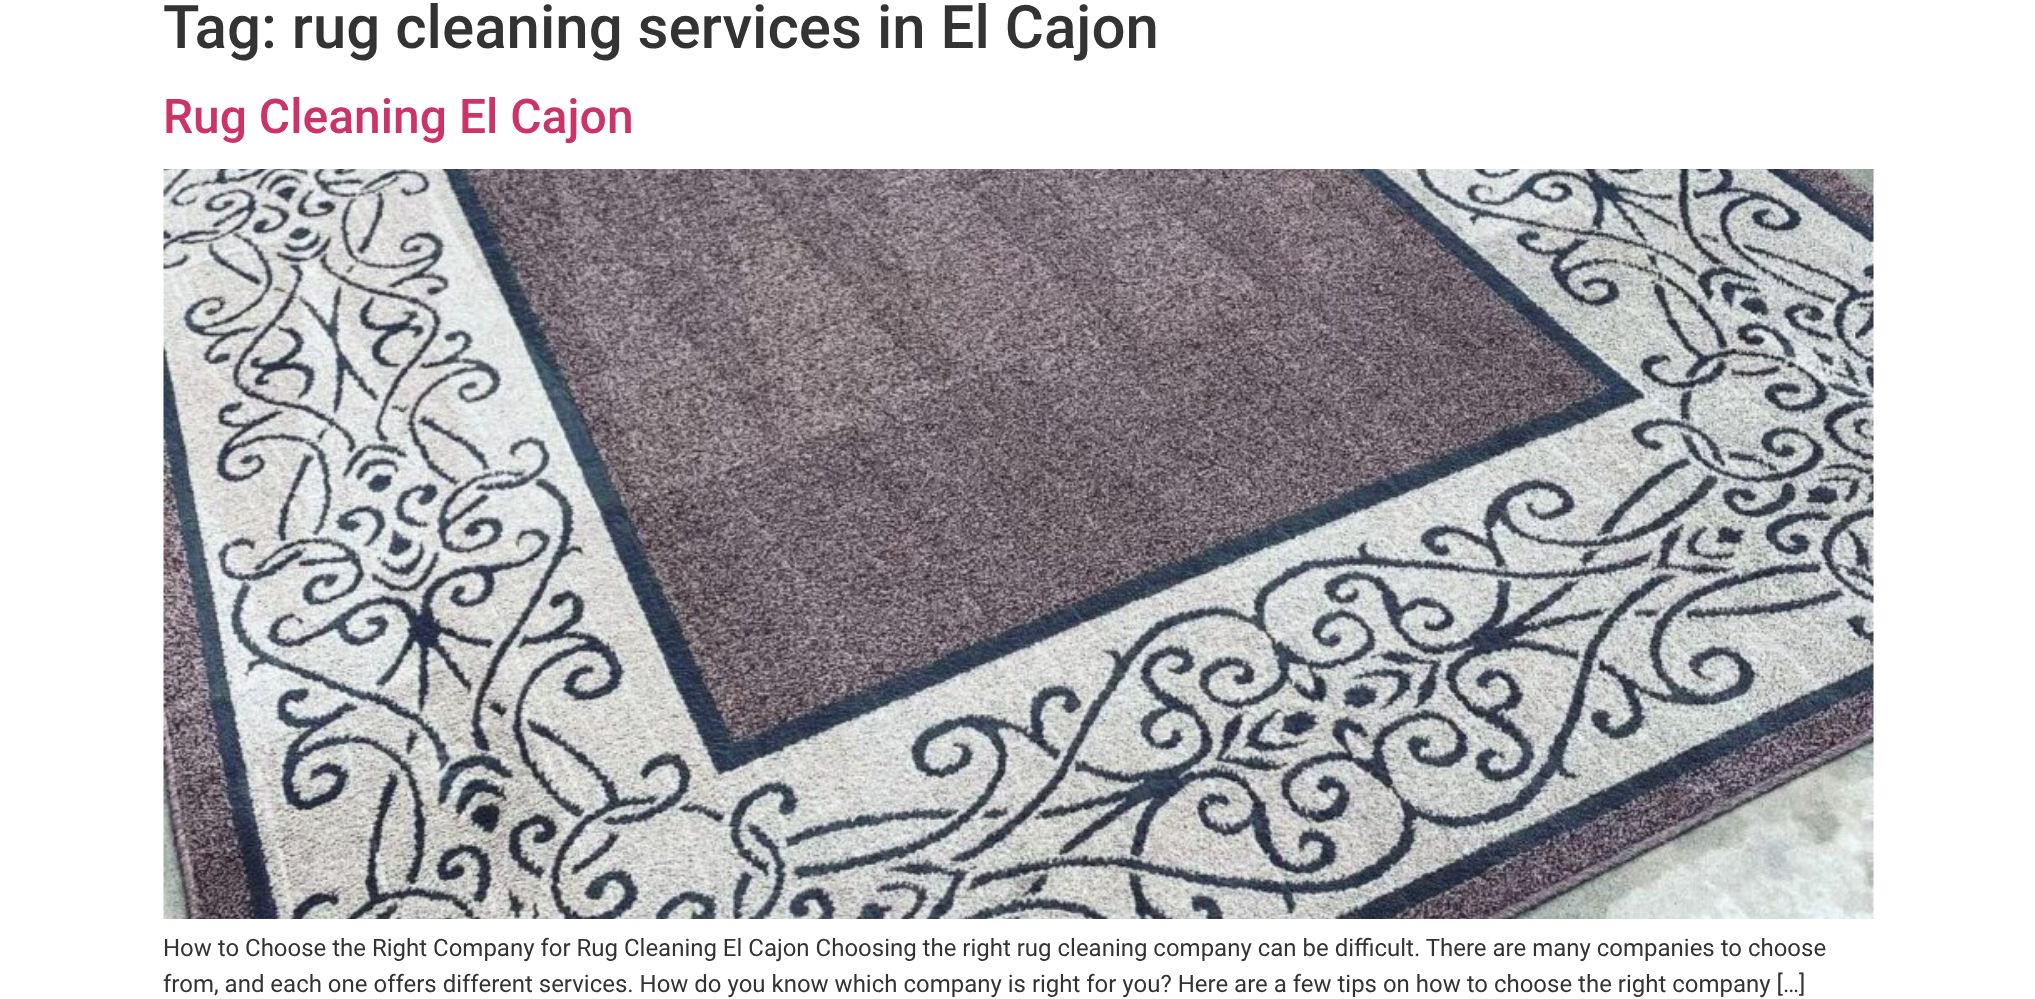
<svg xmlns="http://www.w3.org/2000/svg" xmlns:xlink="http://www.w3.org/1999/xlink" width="2035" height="999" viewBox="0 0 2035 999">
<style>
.cls-1{font:500 60px Roboto;fill:#333333}
.cls-2{font:500 48px Roboto;fill:#cc3366}
.cls-3{font:24px Roboto;fill:#333333}
</style>
<rect width="100%" height="100%" fill="#ffffff"/>
<image xlink:href="image0.png" x="163" y="169" width="1711" height="750"/>
<text class="cls-1" x="163" y="48">Tag: rug cleaning services in El Cajon</text>
<text class="cls-2" x="163" y="133">Rug Cleaning El Cajon</text>
<text class="cls-3"><tspan x="163" y="956">How to Choose the Right Company for Rug Cleaning El Cajon Choosing the right rug cleaning company can be difficult. There are many companies to choose</tspan><tspan x="163" y="992">from, and each one offers different services. How do you know which company is right for you? Here are a few tips on how to choose the right company […]</tspan></text>
</svg>
